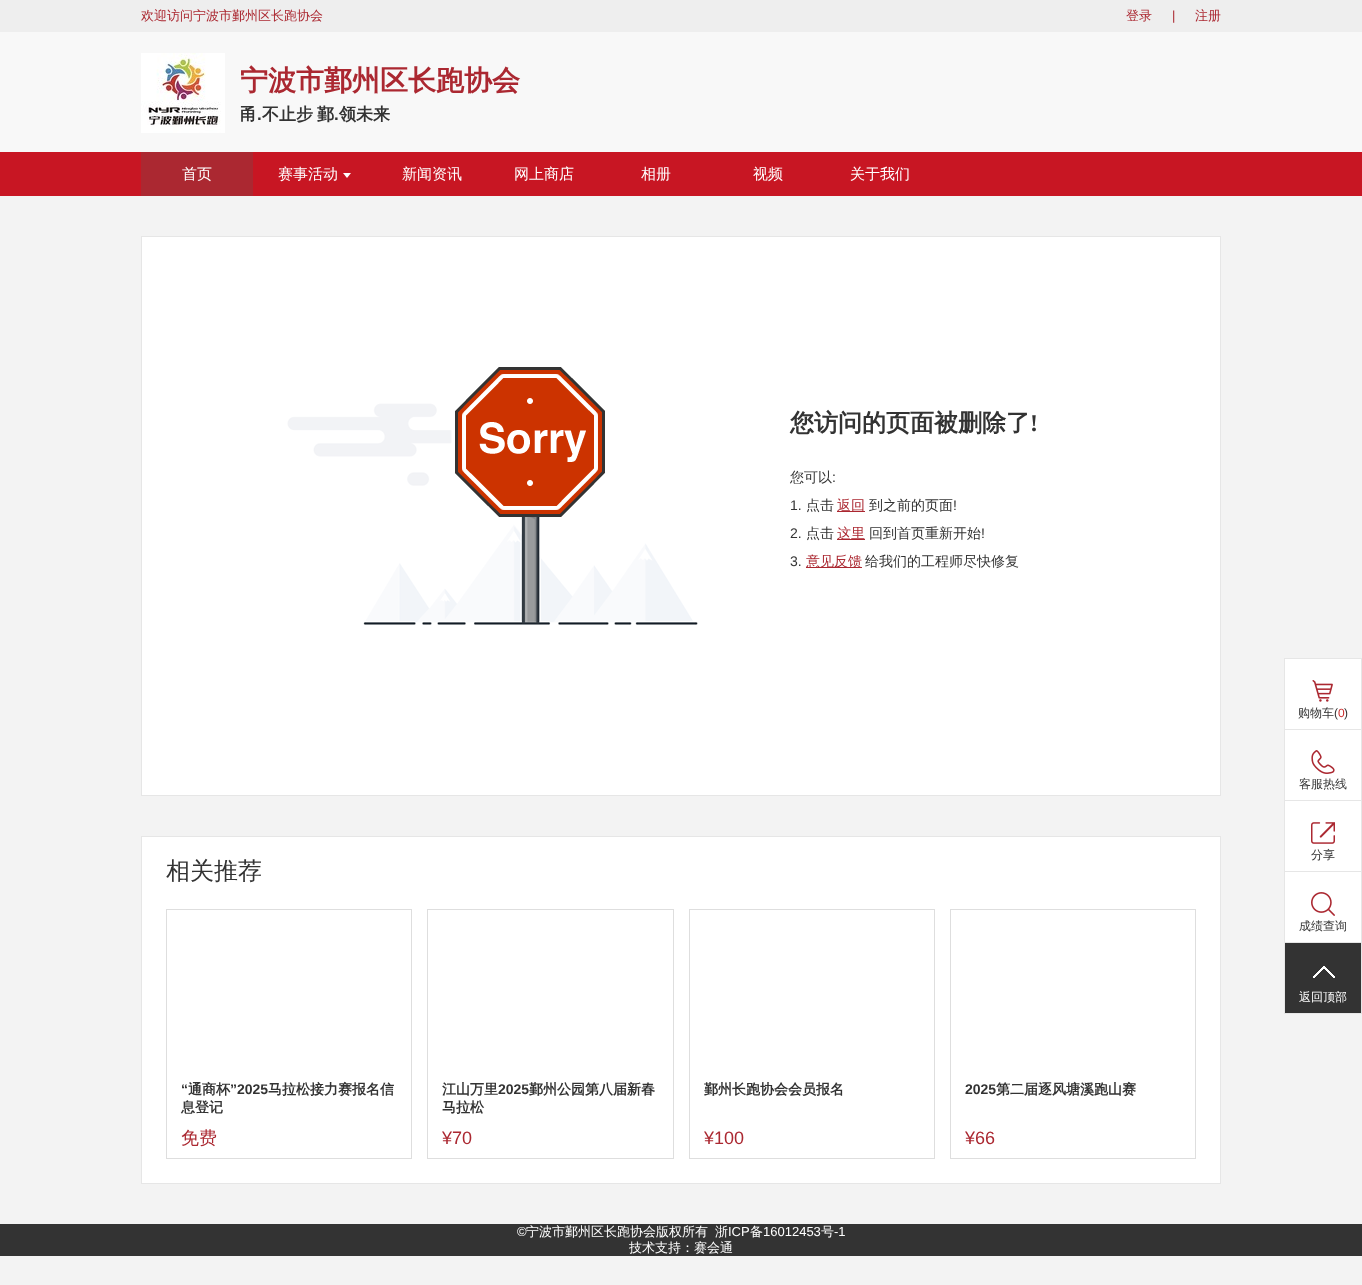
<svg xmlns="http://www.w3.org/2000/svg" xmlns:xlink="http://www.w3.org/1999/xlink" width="1362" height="1285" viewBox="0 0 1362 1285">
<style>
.cls-1{font:500 13px WenQuanYi Zen Hei;fill:#ab2831}
.cls-2{font:13px Liberation Sans;fill:#ab2831}
.cls-3{font:bold 28px WenQuanYi Zen Hei;fill:#ab2831}
.cls-4{font:bold 17px WenQuanYi Zen Hei;fill:#333333}
.cls-5{font:bold 17px Liberation Sans;fill:#333333}
.cls-6{font:500 15px WenQuanYi Zen Hei;fill:#ffffff}
.cls-7{font:bold 24px WenQuanYi Zen Hei;fill:#333333}
.cls-8{font:bold 24px Liberation Serif;fill:#333333}
.cls-9{font:500 14px WenQuanYi Zen Hei;fill:#333333}
.cls-10{font:14px Liberation Sans;fill:#333333}
.cls-11{font:500 14px WenQuanYi Zen Hei;fill:#ab2831}
.cls-12{font:500 24px WenQuanYi Zen Hei;fill:#333333}
.cls-13{font:bold 14px Liberation Sans;fill:#333333}
.cls-14{font:bold 14px WenQuanYi Zen Hei;fill:#333333}
.cls-15{font:500 18px WenQuanYi Zen Hei;fill:#ab2831}
.cls-16{font:18px Liberation Sans;fill:#ab2831}
.cls-17{font:500 12px WenQuanYi Zen Hei;fill:#333333}
.cls-18{font:12px Liberation Sans;fill:#333333}
.cls-19{font:12px Liberation Sans;fill:#cb2929}
.cls-20{font:500 12px WenQuanYi Zen Hei;fill:#ffffff}
.cls-21{font:13px Liberation Sans;fill:#ffffff}
.cls-22{font:500 13px WenQuanYi Zen Hei;fill:#ffffff}
</style>
<rect width="100%" height="100%" fill="#f3f3f3"/>
<rect fill="#f8f8f8" x="0" y="32" width="1362" height="120"/>
<rect fill="#eeeeee" x="0" y="0" width="1362" height="32"/>
<image xlink:href="image0.png" x="141" y="53" width="84" height="80"/>
<rect fill="#c81623" x="0" y="152" width="1362" height="44"/>
<rect fill="#ab2831" x="141" y="152" width="112" height="44"/>
<path fill="#ffffff" d="M343 173H351L347 178Z"/>
<rect fill="#ffffff" x="142" y="237" width="1078" height="558"/>
<image xlink:href="image1.png" x="287" y="367" width="411" height="258"/>
<rect fill="none" stroke="#e6e6e6" x="141.5" y="236.5" width="1079" height="559"/>
<rect fill="#ab2831" x="837" y="511" width="28" height="1"/>
<rect fill="#ab2831" x="837" y="539" width="28" height="1"/>
<rect fill="#ab2831" x="806" y="567" width="56" height="1"/>
<rect fill="#ffffff" stroke="#e6e6e6" x="141.5" y="836.5" width="1079" height="347"/>
<rect fill="none" stroke="#dedede" x="166.5" y="909.5" width="245" height="249"/>
<rect fill="none" stroke="#dedede" x="427.5" y="909.5" width="246" height="249"/>
<rect fill="none" stroke="#dedede" x="689.5" y="909.5" width="245" height="249"/>
<rect fill="none" stroke="#dedede" x="950.5" y="909.5" width="245" height="249"/>
<rect fill="#ffffff" stroke="#e6e6e6" x="1284.5" y="658.5" width="77" height="71"/>
<image xlink:href="image2.png" x="1312" y="680" width="21" height="22"/>
<rect fill="#ffffff" stroke="#e6e6e6" x="1284.5" y="729.5" width="77" height="71"/>
<image xlink:href="image3.png" x="1311" y="750" width="24" height="24"/>
<rect fill="#ffffff" stroke="#e6e6e6" x="1284.5" y="800.5" width="77" height="71"/>
<image xlink:href="image4.png" x="1311" y="822" width="24" height="22"/>
<rect fill="#ffffff" stroke="#e6e6e6" x="1284.5" y="871.5" width="77" height="71"/>
<image xlink:href="image5.png" x="1311" y="892" width="24" height="24"/>
<rect fill="#333333" x="1285" y="943" width="76" height="70"/>
<image xlink:href="image6.png" x="1313" y="966" width="22" height="12"/>
<rect fill="none" stroke="#e6e6e6" x="1284.5" y="942.5" width="77" height="71"/>
<rect fill="#333333" x="0" y="1224" width="1362" height="32"/>
<text class="cls-1" x="141" y="20">欢迎访问宁波市鄞州区长跑协会</text>
<text class="cls-1" x="1126" y="20">登录</text>
<text class="cls-2" x="1172" y="20">|</text>
<text class="cls-1" x="1195" y="20">注册</text>
<text class="cls-3" x="240" y="90">宁波市鄞州区长跑协会</text>
<text class="cls-4" x="240" y="120">甬</text>
<text class="cls-5" x="257" y="120">.</text>
<text class="cls-4" x="262" y="120">不止步</text>
<text class="cls-4" x="317" y="120">鄞</text>
<text class="cls-5" x="334" y="120">.</text>
<text class="cls-4" x="339" y="120">领未来</text>
<text class="cls-6" x="182" y="179">首页</text>
<text class="cls-6" x="278" y="179">赛事活动</text>
<text class="cls-6" x="402" y="179">新闻资讯</text>
<text class="cls-6" x="514" y="179">网上商店</text>
<text class="cls-6" x="641" y="179">相册</text>
<text class="cls-6" x="753" y="179">视频</text>
<text class="cls-6" x="850" y="179">关于我们</text>
<text class="cls-7" x="790" y="431">您访问的页面被删除了</text>
<text class="cls-8" x="1030" y="431">!</text>
<text class="cls-9" x="790" y="482">您可以</text>
<text class="cls-10" x="832" y="482">:</text>
<text class="cls-10" x="790" y="510">1.</text>
<text class="cls-9" x="806" y="510">点击</text>
<text class="cls-11" x="837" y="510">返回</text>
<text class="cls-9" x="869" y="510">到之前的页面</text>
<text class="cls-10" x="953" y="510">!</text>
<text class="cls-10" x="790" y="538">2.</text>
<text class="cls-9" x="806" y="538">点击</text>
<text class="cls-11" x="837" y="538">这里</text>
<text class="cls-9" x="869" y="538">回到首页重新开始</text>
<text class="cls-10" x="981" y="538">!</text>
<text class="cls-10" x="790" y="566">3.</text>
<text class="cls-11" x="806" y="566">意见反馈</text>
<text class="cls-9" x="865" y="566">给我们的工程师尽快修复</text>
<text class="cls-12" x="166" y="879">相关推荐</text>
<text class="cls-13" x="181" y="1094">“</text>
<text class="cls-14" x="188" y="1094">通商杯</text>
<text class="cls-13" x="230" y="1094">”2025</text>
<text class="cls-14" x="268" y="1094">马拉松接力赛报名信</text>
<text class="cls-14" x="181" y="1112">息登记</text>
<text class="cls-15" x="181" y="1144">免费</text>
<text class="cls-14" x="442" y="1094">江山万里</text>
<text class="cls-13" x="498" y="1094">2025</text>
<text class="cls-14" x="529" y="1094">鄞州公园第八届新春</text>
<text class="cls-14" x="442" y="1112">马拉松</text>
<text class="cls-16" x="442" y="1144">¥70</text>
<text class="cls-14" x="704" y="1094">鄞州长跑协会会员报名</text>
<text class="cls-16" x="704" y="1144">¥100</text>
<text class="cls-13" x="965" y="1094">2025</text>
<text class="cls-14" x="996" y="1094">第二届逐风塘溪跑山赛</text>
<text class="cls-16" x="965" y="1144">¥66</text>
<text class="cls-17" x="1298" y="717">购物车</text>
<text class="cls-18" x="1334" y="717">(</text>
<text class="cls-19" x="1338" y="717">0</text>
<text class="cls-18" x="1344" y="717">)</text>
<text class="cls-17" x="1299" y="788">客服热线</text>
<text class="cls-17" x="1311" y="859">分享</text>
<text class="cls-17" x="1299" y="930">成绩查询</text>
<text class="cls-20" x="1299" y="1001">返回顶部</text>
<text class="cls-21" x="517" y="1236">©</text>
<text class="cls-22" x="526" y="1236">宁波市鄞州区长跑协会版权所有</text>
<text class="cls-22" x="715" y="1236">浙</text>
<text class="cls-21" x="728" y="1236">ICP</text>
<text class="cls-22" x="750" y="1236">备</text>
<text class="cls-21" x="763" y="1236">16012453</text>
<text class="cls-22" x="821" y="1236">号</text>
<text class="cls-21" x="834" y="1236">-1</text>
<text class="cls-22" x="629" y="1252">技术支持：赛会通</text>
</svg>
